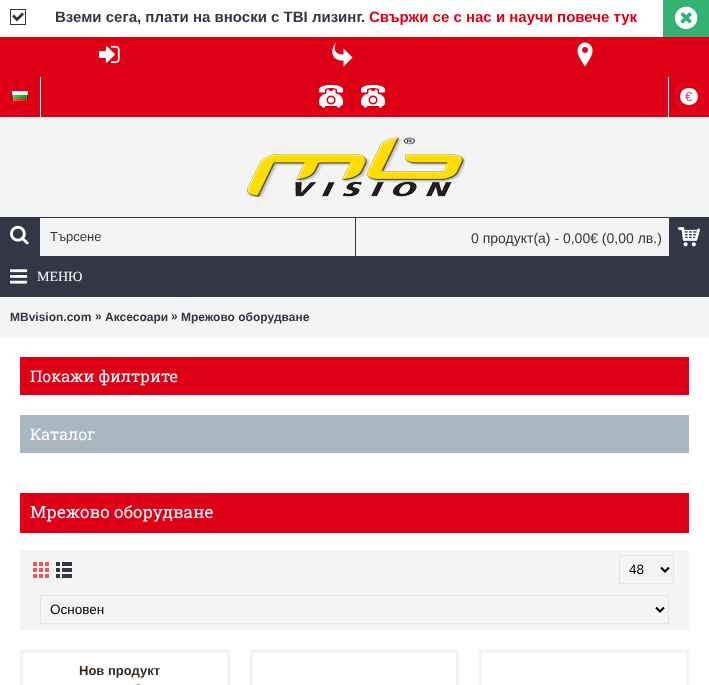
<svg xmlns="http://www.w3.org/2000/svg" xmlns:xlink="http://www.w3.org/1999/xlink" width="709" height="685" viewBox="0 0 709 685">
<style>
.cls-1{font:bold 15px Liberation Sans;fill:#333745}
.cls-2{font:bold 15px Liberation Sans;fill:#dd0017}
.cls-3{font:13px Liberation Sans;fill:#ea2e49}
.cls-4{font:13px Liberation Sans;fill:#333745}
.cls-5{font:14px Liberation Sans;fill:#333745}
.cls-6{font:14px Liberation Serif;fill:#ffffff}
.cls-7{font:bold 12px Liberation Sans;fill:#333745}
.cls-8{font:16px Roboto Slab;fill:#ffffff}
.cls-9{font:17px Roboto Slab;fill:#ffffff}
.cls-10{font:13.5px Liberation Sans;fill:#000000}
.cls-11{font:bold 13px Liberation Sans;fill:#37291e}
</style>
<rect width="100%" height="100%" fill="#ffffff"/>
<image xlink:href="image0.png" x="10" y="9" width="16" height="16"/>
<rect fill="#35b171" x="663" y="0" width="46" height="37"/>
<image xlink:href="image1.png" x="675" y="6" width="23" height="23"/>
<rect fill="#dd0017" x="0" y="37" width="709" height="80"/>
<image xlink:href="image2.png" x="99" y="45" width="21" height="19"/>
<image xlink:href="image3.png" x="332" y="42" width="21" height="25"/>
<image xlink:href="image4.png" x="577" y="42" width="16" height="25"/>
<rect fill="#f4f4f4" x="40" y="77" width="1" height="40"/>
<image xlink:href="image5.png" x="12" y="91" width="16" height="11"/>
<image xlink:href="image6.png" x="319" y="85" width="25" height="23"/>
<image xlink:href="image6.png" x="361" y="85" width="25" height="23"/>
<rect fill="#f4f4f4" x="668" y="77" width="1" height="40"/>
<rect fill="#ffffff" x="680" y="88" width="18" height="17" rx="8.5"/>
<rect fill="#f4f4f4" x="0" y="117" width="709" height="100"/>
<image xlink:href="image7.png" x="246" y="137" width="219" height="60"/>
<rect fill="#333745" x="0" y="217" width="40" height="40"/>
<image xlink:href="image8.png" x="10" y="225" width="19" height="20"/>
<rect fill="#f4f4f4" x="40" y="218" width="315" height="38"/>
<rect fill="#333745" x="40" y="217" width="669" height="1"/>
<rect fill="#333745" x="40" y="256" width="629" height="1"/>
<rect fill="#f4f4f4" x="356" y="218" width="313" height="38"/>
<rect fill="#333745" x="355" y="217" width="1" height="40"/>
<rect fill="#333745" x="669" y="218" width="40" height="39"/>
<image xlink:href="image9.png" x="678" y="227" width="22" height="20"/>
<rect fill="#333745" x="0" y="257" width="709" height="40"/>
<image xlink:href="image10.png" x="10" y="269" width="18" height="15"/>
<rect fill="#f4f4f4" x="0" y="297" width="709" height="40"/>
<rect fill="#dd0017" x="20" y="357" width="669" height="38"/>
<rect fill="#a9b8c0" x="20" y="415" width="669" height="38"/>
<rect fill="#dd0017" x="20" y="493" width="669" height="40"/>
<rect fill="#f4f4f4" x="20" y="550" width="669" height="80"/>
<image xlink:href="image11.png" x="33" y="562" width="16" height="16"/>
<image xlink:href="image12.png" x="56" y="562" width="16" height="16"/>
<rect fill="none" stroke="#e4e4e4" x="619.5" y="555.5" width="54" height="28"/>
<path fill="none" stroke="#000000" stroke-width="2" d="M661 567.5L665 571.5L669 567.5"/>
<rect fill="none" stroke="#e4e4e4" x="40.5" y="595.5" width="628" height="28"/>
<path fill="none" stroke="#000000" stroke-width="2" d="M656 607.5L660 611.5L664 607.5"/>
<rect fill="none" stroke="#f4f4f4" stroke-width="3" x="21.5" y="651.5" width="207" height="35"/>
<image xlink:href="image13.png" x="135" y="682" width="6" height="3"/>
<rect fill="none" stroke="#f4f4f4" stroke-width="3" x="251.5" y="651.5" width="206" height="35"/>
<rect fill="none" stroke="#f4f4f4" stroke-width="3" x="480.5" y="651.5" width="207" height="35"/>
<text class="cls-1" x="55" y="22">Вземи сега, плати на вноски с TBI лизинг.</text>
<text class="cls-2" x="369" y="22">Свържи се с нас и научи повече тук</text>
<text class="cls-3" x="685" y="101">€</text>
<text class="cls-4" x="50" y="241">Търсене</text>
<text class="cls-5" x="471" y="243">0 продукт(а) - 0,00€ (0,00 лв.)</text>
<text class="cls-6" x="37" y="281">МЕНЮ</text>
<text class="cls-7" x="10" y="321">MBvision.com</text>
<text class="cls-7" x="95" y="320">»</text>
<text class="cls-7" x="105" y="321">Аксесоари</text>
<text class="cls-7" x="171" y="320">»</text>
<text class="cls-7" x="181" y="321">Мрежово оборудване</text>
<text class="cls-8" x="30" y="382">Покажи филтрите</text>
<text class="cls-8" x="30" y="440">Каталог</text>
<text class="cls-9" x="30" y="518">Мрежово оборудване</text>
<text class="cls-10" x="629" y="574">48</text>
<text class="cls-10" x="50" y="614">Основен</text>
<text class="cls-11" x="79" y="675">Нов продукт</text>
</svg>
